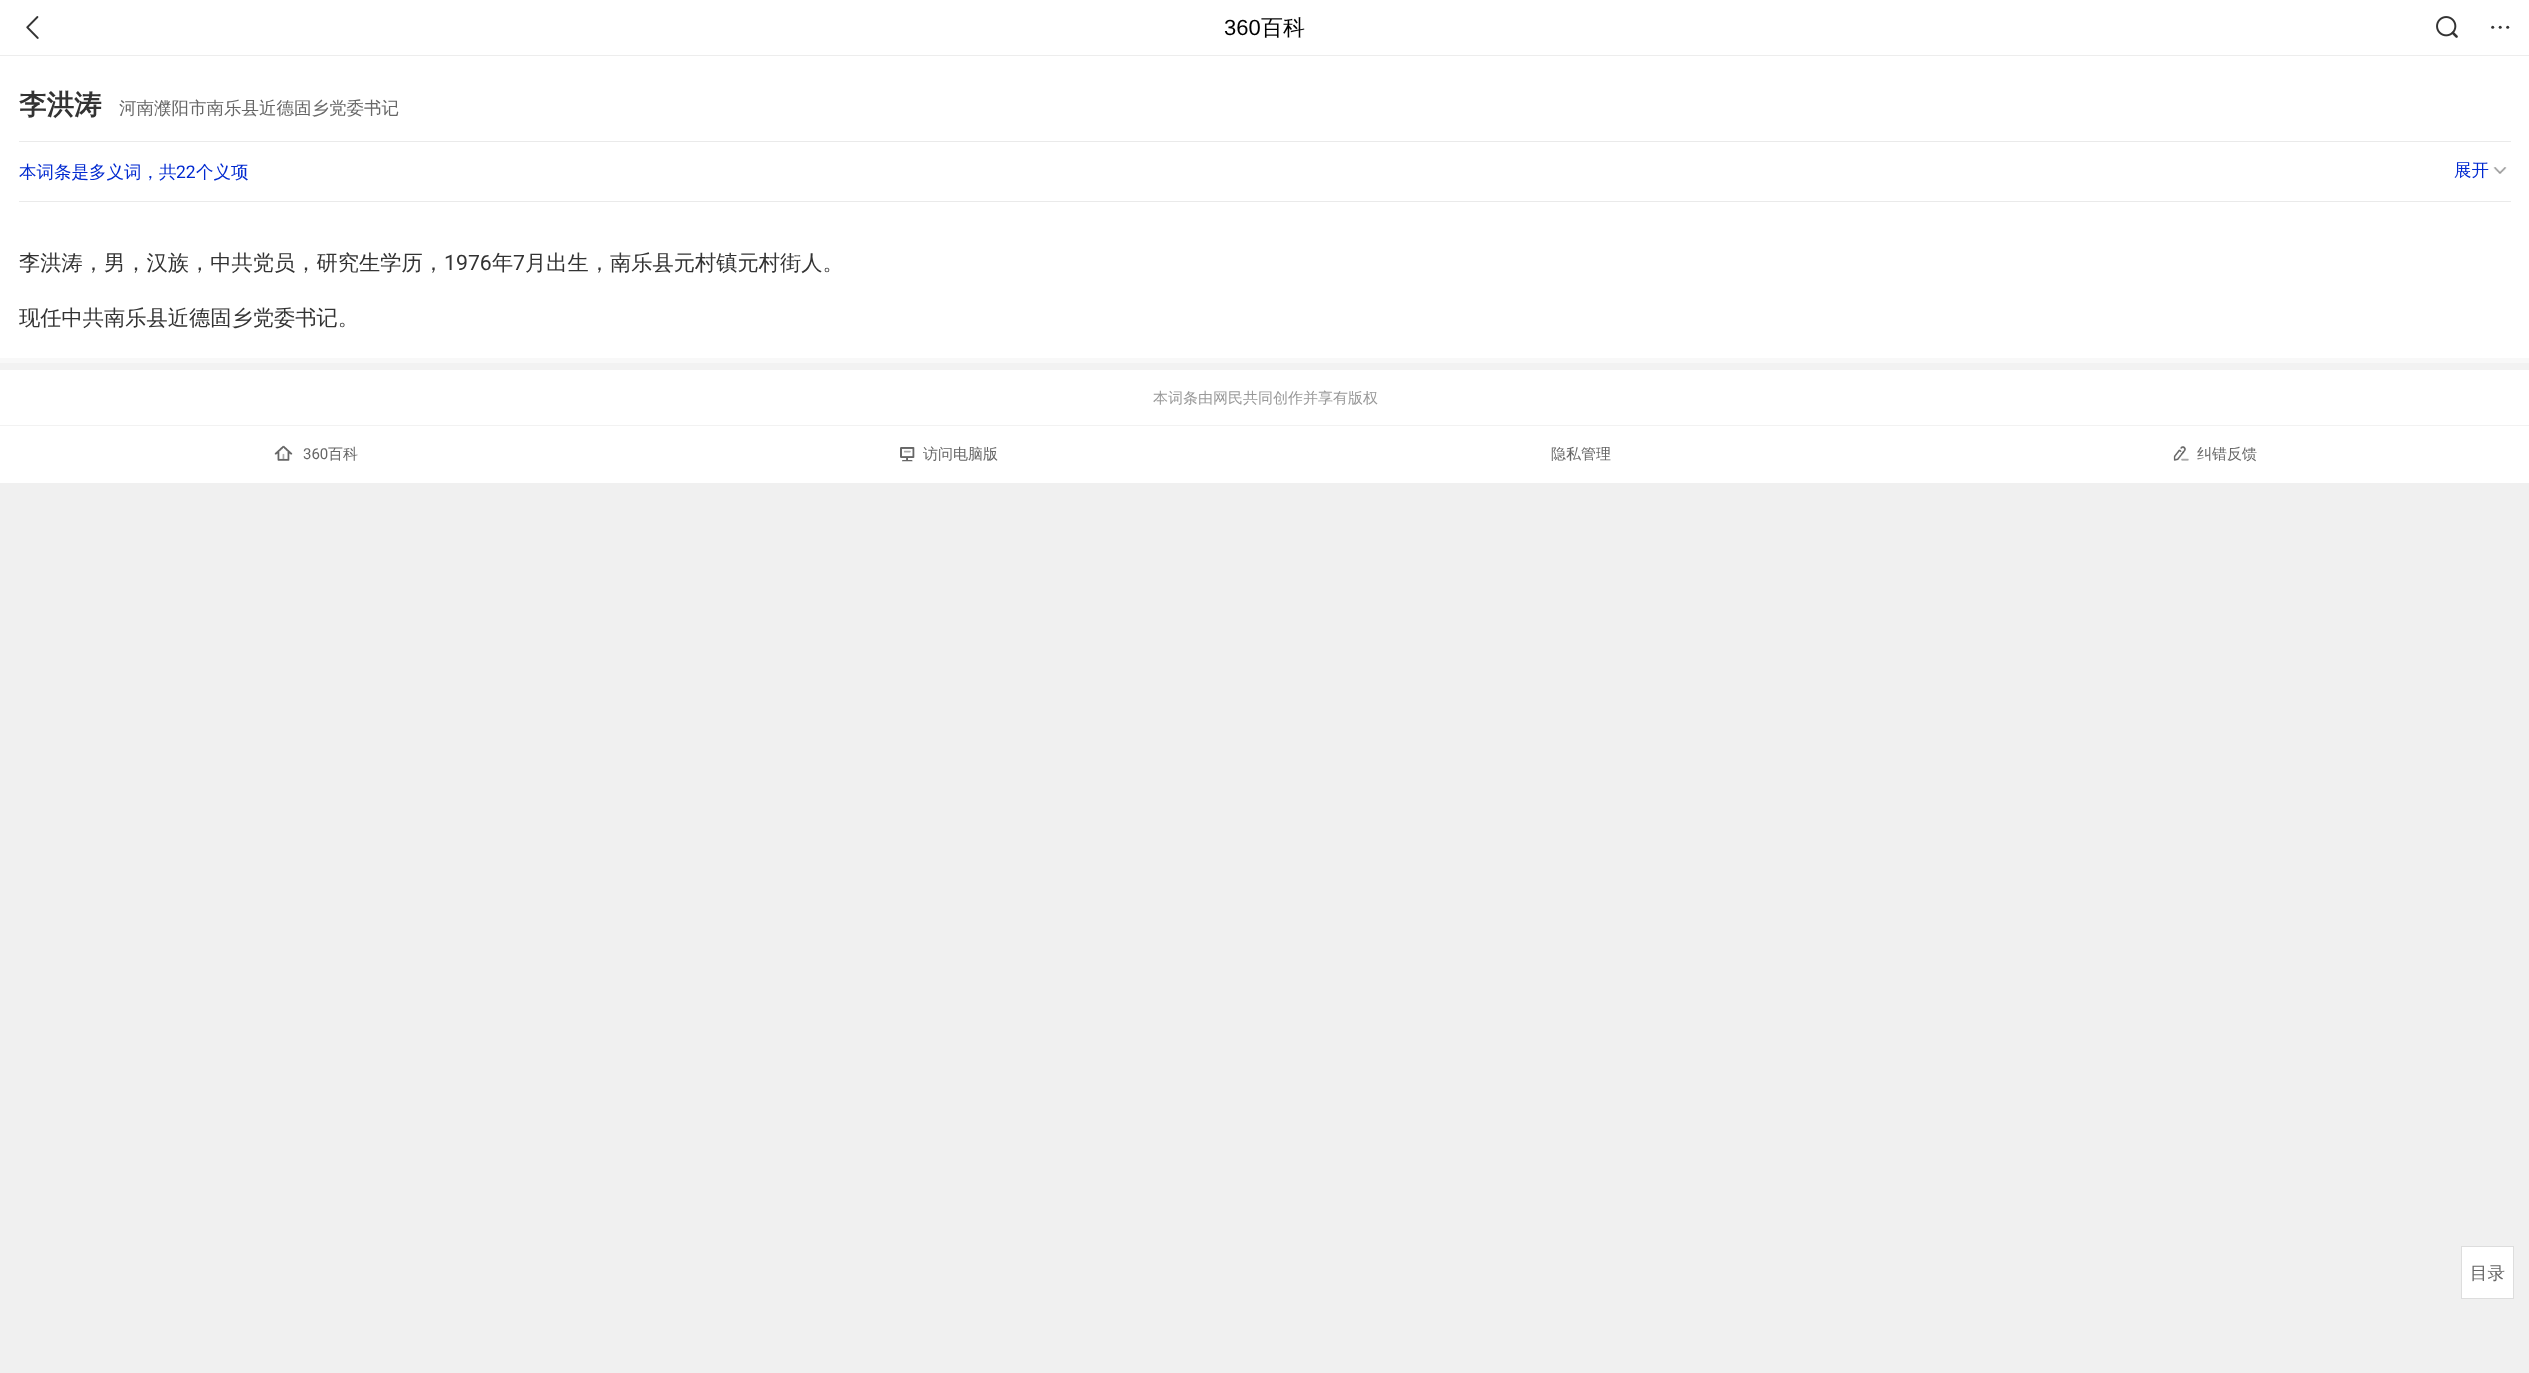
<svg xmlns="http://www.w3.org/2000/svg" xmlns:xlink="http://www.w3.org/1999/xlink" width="2529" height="1373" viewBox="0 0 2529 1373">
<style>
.cls-1{font:22px Liberation Sans;fill:#000000}
.cls-2{font:500 22px WenQuanYi Zen Hei;fill:#000000}
.cls-3{font:500 17.5px WenQuanYi Zen Hei;fill:#666666}
.cls-4{font:bold 27.5px WenQuanYi Zen Hei;fill:#333333}
.cls-5{font:500 17.5px WenQuanYi Zen Hei;fill:#0029d0}
.cls-6{font:17.5px Roboto;fill:#0029d0}
.cls-7{font:500 21.25px WenQuanYi Zen Hei;fill:#333333}
.cls-8{font:21.25px Roboto;fill:#333333}
.cls-9{font:500 15px WenQuanYi Zen Hei;fill:#999999}
.cls-10{font:15px Roboto;fill:#666666}
.cls-11{font:500 15px WenQuanYi Zen Hei;fill:#666666}
</style>
<rect width="100%" height="100%" fill="#f0f0f0"/>
<rect fill="#ffffff" x="0" y="56" width="2529" height="427"/>
<rect fill="#ffffff" x="0" y="0" width="2529" height="55"/>
<rect fill="#ededed" x="0" y="55" width="2529" height="1"/>
<image xlink:href="image0.png" x="26" y="16" width="13" height="23"/>
<image xlink:href="image1.png" x="2436" y="16" width="22" height="22"/>
<circle fill="#333333" cx="2492.7" cy="27.3" r="1.5"/>
<circle fill="#333333" cx="2500.2" cy="27.3" r="1.5"/>
<circle fill="#333333" cx="2507.7" cy="27.3" r="1.5"/>
<rect fill="#ffffff" stroke="#dddddd" x="2461.5" y="1246.5" width="52" height="52"/>
<rect fill="#eaeaea" x="19" y="141" width="2492" height="1"/>
<image xlink:href="image2.png" x="2493" y="167" width="14" height="7"/>
<rect fill="#eaeaea" x="19" y="201" width="2492" height="1"/>
<rect fill="#f8f8f8" x="0" y="358" width="2529" height="5"/>
<rect fill="#f2f2f2" x="0" y="363" width="2529" height="7"/>
<rect fill="#f2f2f2" x="0" y="425" width="2529" height="1"/>
<image xlink:href="image3.png" x="274" y="445" width="19" height="16"/>
<image xlink:href="image4.png" x="900" y="447" width="15" height="15"/>
<image xlink:href="image5.png" x="2173" y="446" width="16" height="15"/>
<text class="cls-1" x="1224" y="35">360</text>
<text class="cls-2" x="1261" y="35">百科</text>
<text class="cls-3" x="2470" y="1279">目录</text>
<text class="cls-4" x="19" y="114">李洪涛</text>
<text class="cls-3" x="119" y="114">河南濮阳市南乐县近德固乡党委书记</text>
<text class="cls-5" x="19" y="178">本词条是多义词，共</text>
<text class="cls-6" x="176" y="178">22</text>
<text class="cls-5" x="196" y="178">个义项</text>
<text class="cls-5" x="2454" y="176">展开</text>
<text class="cls-7" x="19" y="270">李洪涛，男，汉族，中共党员，研究生学历，</text>
<text class="cls-8" x="444" y="270">1976</text>
<text class="cls-7" x="492" y="270">年</text>
<text class="cls-8" x="513" y="270">7</text>
<text class="cls-7" x="525" y="270">月出生，南乐县元村镇元村街人。</text>
<text class="cls-7" x="19" y="325">现任中共南乐县近德固乡党委书记。</text>
<text class="cls-9" x="1153" y="403">本词条由网民共同创作并享有版权</text>
<text class="cls-10" x="303" y="459">360</text>
<text class="cls-11" x="328" y="459">百科</text>
<text class="cls-11" x="923" y="459">访问电脑版</text>
<text class="cls-11" x="1551" y="459">隐私管理</text>
<text class="cls-11" x="2197" y="459">纠错反馈</text>
</svg>
